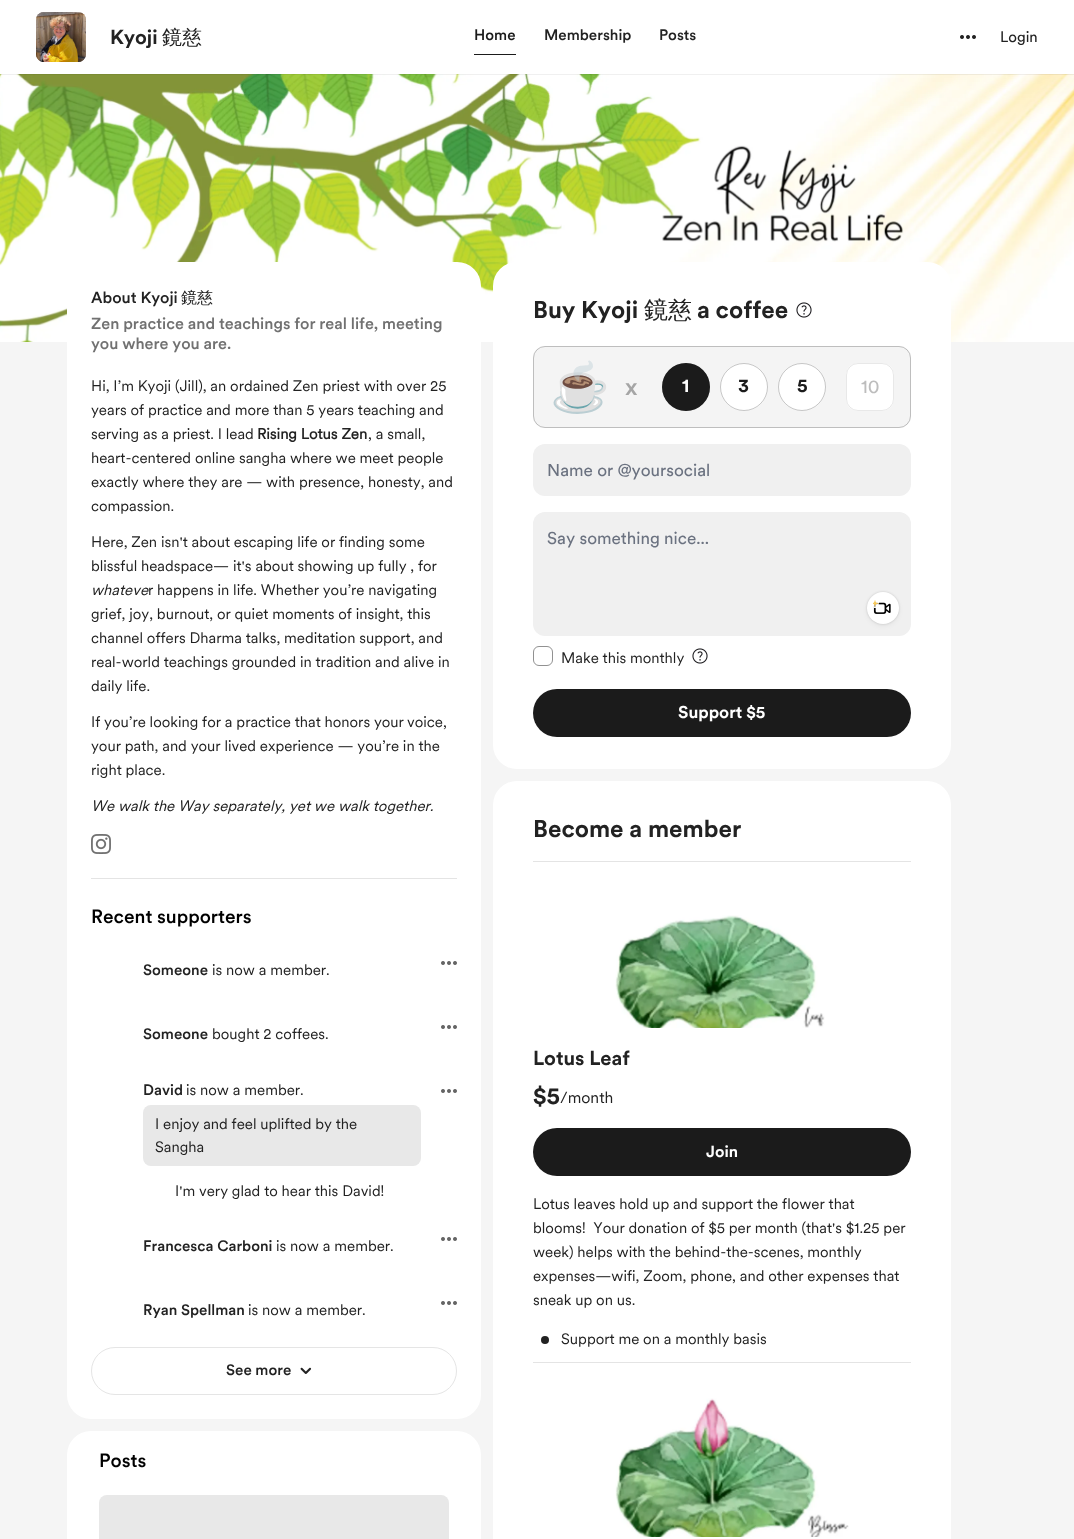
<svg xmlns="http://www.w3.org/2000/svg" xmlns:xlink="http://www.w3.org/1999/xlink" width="1074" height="1539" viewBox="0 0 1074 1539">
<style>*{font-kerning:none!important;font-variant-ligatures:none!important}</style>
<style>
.cls-1{font:bold 20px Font;fill:#222222}
.cls-2{font:500 20px WenQuanYi Zen Hei;fill:#222222}
.cls-3{font:500 15px Font;fill:#1b1b1b}
.cls-4{font:500 15px Font;fill:#222222}
.cls-5{font:15px Font;fill:#222222}
.cls-6{font:500 16px Font;fill:#222222}
.cls-7{font:500 16px WenQuanYi Zen Hei;fill:#222222}
.cls-8{font:500 16px Font;fill:#717171}
.cls-9{font:15px 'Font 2';fill:#222222}
.cls-10{font:bold 15px 'Font 2';fill:#222222}
.cls-11{font:italic 15px Font;fill:#222222}
.cls-12{font:500 19px Font;fill:#000000}
.cls-13{font:bold 24px Font;fill:#222222}
.cls-14{font:500 24px WenQuanYi Zen Hei;fill:#222222}
.cls-15{font:48px Noto Color Emoji;fill:#000000}
.cls-16{font:500 24px Font;fill:#a5a5a5}
.cls-17{font:bold 19px Font;fill:#ffffff}
.cls-18{font:bold 19px Font;fill:#1b1b1b}
.cls-19{font:19px Font;fill:#bdbdbd}
.cls-20{font:17px Font;fill:#6b7280}
.cls-21{font:bold 17px Font;fill:#ffffff}
.cls-22{font:16px 'Font 2';fill:#222222}
.cls-23{font:bold 16px Font;fill:#ffffff}
</style>
<defs>
<clipPath id="clip1"><rect x="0" y="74" width="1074" height="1"/></clipPath>
</defs>
<rect width="100%" height="100%" fill="#ffffff"/>
<image xlink:href="image3.png" x="0" y="74" width="1074" height="268"/>
<g clip-path="url(#clip1)">
<rect fill="#000000" fill-opacity="0.06" filter="blur(0.5px)" x="0" y="1" width="1074" height="74"/>
</g>
<image xlink:href="image0.png" x="36" y="12" width="50" height="50"/>
<image xlink:href="image1.png" x="36" y="12" width="50" height="50"/>
<rect fill="#1b1b1b" x="474" y="54" width="42" height="1"/>
<image xlink:href="image2.png" x="960" y="35" width="16" height="4"/>
<rect fill="#f5f5f5" x="0" y="342" width="1074" height="1197"/>
<rect fill="#ffffff" x="67" y="262" width="414" height="1157" rx="24"/>
<rect fill="#e4e4e4" x="91" y="878" width="366" height="1"/>
<image xlink:href="image4.png" x="91" y="834" width="20" height="20"/>
<image xlink:href="image5.png" x="441" y="961" width="16" height="4"/>
<image xlink:href="image5.png" x="441" y="1025" width="16" height="4"/>
<rect fill="#e8e8e8" x="143" y="1105" width="278" height="61" rx="8"/>
<image xlink:href="image5.png" x="441" y="1089" width="16" height="4"/>
<image xlink:href="image5.png" x="441" y="1237" width="16" height="4"/>
<image xlink:href="image5.png" x="441" y="1301" width="16" height="4"/>
<rect fill="none" stroke="#e5e5e5" x="91.5" y="1347.5" width="365" height="47" rx="23.5"/>
<image xlink:href="image6.png" x="300" y="1367" width="12" height="7"/>
<rect fill="#ffffff" x="67" y="1431" width="414" height="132" rx="24"/>
<rect fill="#e8e8e8" x="99" y="1495" width="350" height="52" rx="8"/>
<rect fill="#ffffff" x="493" y="262" width="458" height="507" rx="24"/>
<image xlink:href="image7.png" x="796" y="302" width="16" height="16"/>
<rect fill="#f4f4f4" x="533" y="346" width="378" height="82" rx="12"/>
<rect fill="none" stroke="#1b1b1b" stroke-opacity="0.25" x="533.5" y="346.5" width="377" height="81" rx="11.5"/>
<circle fill="#1b1b1b" cx="686" cy="387" r="24"/>
<circle fill="none" stroke="#1b1b1b" stroke-opacity="0.25" cx="686" cy="387" r="23.5"/>
<circle fill="#ffffff" cx="744" cy="387" r="24"/>
<circle fill="none" stroke="#1b1b1b" stroke-opacity="0.25" cx="744" cy="387" r="23.5"/>
<circle fill="#ffffff" cx="802" cy="387" r="24"/>
<circle fill="none" stroke="#1b1b1b" stroke-opacity="0.25" cx="802" cy="387" r="23.5"/>
<rect fill="#ffffff" x="846" y="363" width="48" height="48" rx="12"/>
<rect fill="none" stroke="#222222" stroke-opacity="0.1" x="846.5" y="363.5" width="47" height="47" rx="11.5"/>
<rect fill="#f0f0f0" x="533" y="444" width="378" height="52" rx="12"/>
<rect fill="#f0f0f0" x="533" y="512" width="378" height="124" rx="12"/>
<rect fill="#000000" fill-opacity="0.05" filter="blur(2.5px)" x="867" y="594" width="32" height="32" rx="16"/>
<rect fill="#000000" fill-opacity="0.15" filter="blur(1px)" x="867" y="592" width="32" height="32" rx="16"/>
<circle fill="#ffffff" cx="883" cy="608" r="16"/>
<image xlink:href="image9.png" x="873" y="602" width="18" height="12"/>
<image xlink:href="image8.png" x="873" y="600" width="6" height="8"/>
<rect fill="none" stroke="#919191" x="533.5" y="646.5" width="19" height="19" rx="5.5"/>
<image xlink:href="image7.png" x="692" y="648" width="16" height="16"/>
<rect fill="#1b1b1b" x="533" y="689" width="378" height="48" rx="24"/>
<rect fill="#ffffff" x="493" y="781" width="458" height="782" rx="24"/>
<rect fill="#e4e4e4" x="533" y="861" width="378" height="1"/>
<rect fill="#e4e4e4" x="533" y="1362" width="378" height="1"/>
<image xlink:href="image10.png" x="615" y="915" width="210" height="113"/>
<rect fill="#1b1b1b" x="533" y="1128" width="378" height="48" rx="24"/>
<circle fill="#222222" cx="545" cy="1340" r="4"/>
<image xlink:href="image11.png" x="615" y="1398" width="234" height="139"/>
<text class="cls-1" x="110" y="44">Kyoji</text>
<text class="cls-2" x="162" y="44">鏡慈</text>
<text class="cls-3" x="474" y="40">Home</text>
<text class="cls-4" x="544" y="40">Membership</text>
<text class="cls-4" x="659" y="40">Posts</text>
<text class="cls-5" x="1000" y="42">Login</text>
<text class="cls-6" x="91" y="303">About Kyoji</text>
<text class="cls-7" x="181" y="303">鏡慈</text>
<text class="cls-8"><tspan x="91" y="329">Zen practice and teachings for real life, meeting</tspan><tspan x="91" y="349">you where you are.</tspan></text>
<text class="cls-9"><tspan x="91" y="391">Hi, I’m Kyoji (Jill), an ordained Zen priest with over 25</tspan><tspan x="91" y="415">years of practice and more than 5 years teaching and</tspan><tspan x="91" y="439">serving as a priest. I lead</tspan></text>
<text class="cls-10" x="257" y="439">Rising Lotus Zen</text>
<text class="cls-9" x="368" y="439">, a small,</text>
<text class="cls-9"><tspan x="91" y="463">heart-centered online sangha where we meet people</tspan><tspan x="91" y="487">exactly where they are — with presence, honesty, and</tspan><tspan x="91" y="511">compassion.</tspan></text>
<text class="cls-9"><tspan x="91" y="547">Here, Zen isn't about escaping life or finding some</tspan><tspan x="91" y="571">blissful headspace— it's about showing up fully , for</tspan></text>
<text class="cls-11" x="91" y="595">whateve</text>
<text class="cls-9" x="148" y="595">r happens in life. Whether you’re navigating</text>
<text class="cls-9"><tspan x="91" y="619">grief, joy, burnout, or quiet moments of insight, this</tspan><tspan x="91" y="643">channel offers Dharma talks, meditation support, and</tspan><tspan x="91" y="667">real-world teachings grounded in tradition and alive in</tspan><tspan x="91" y="691">daily life.</tspan></text>
<text class="cls-9" x="91" y="727">If you’re looking for a practice that honors your</text>
<text class="cls-9" x="407" y="727">voice,</text>
<text class="cls-9"><tspan x="91" y="751">your path, and your lived experience — you’re in the</tspan><tspan x="91" y="775">right place.</tspan></text>
<text class="cls-11" x="91" y="811">We walk the Way separately,</text>
<text class="cls-11" x="289" y="811">yet we walk together.</text>
<text class="cls-12" x="91" y="923">Recent supporters</text>
<text class="cls-4" x="143" y="975">Someone</text>
<text class="cls-9" x="212" y="975">is now a member.</text>
<text class="cls-4" x="143" y="1039">Someone</text>
<text class="cls-9" x="212" y="1039">bought 2 coffees.</text>
<text class="cls-4" x="143" y="1095">David</text>
<text class="cls-9" x="186" y="1095">is now a member.</text>
<text class="cls-9"><tspan x="155" y="1129">I enjoy and feel uplifted by the</tspan><tspan x="155" y="1152">Sangha</tspan></text>
<text class="cls-9" x="175" y="1196">I'm very glad to hear this David!</text>
<text class="cls-4" x="143" y="1251">Francesca Carboni</text>
<text class="cls-9" x="276" y="1251">is now a member.</text>
<text class="cls-4" x="143" y="1315">Ryan Spellman</text>
<text class="cls-9" x="248" y="1315">is now a member.</text>
<text class="cls-4" x="226" y="1375">See more</text>
<text class="cls-12" x="99" y="1467">Posts</text>
<text class="cls-13" x="533" y="318">Buy Kyoji</text>
<text class="cls-14" x="644" y="318">鏡慈</text>
<text class="cls-13" x="697" y="318">a coffee</text>
<text class="cls-15" x="550" y="404">☕</text>
<text class="cls-16" x="625" y="395">x</text>
<text class="cls-17" x="682" y="392">1</text>
<text class="cls-18" x="738" y="392">3</text>
<text class="cls-18" x="797" y="392">5</text>
<text class="cls-19" x="861" y="393">10</text>
<text class="cls-20" x="547" y="476">Name or @yoursocial</text>
<text class="cls-20" x="547" y="544">Say something nice...</text>
<text class="cls-9" x="561" y="663">Make this monthly</text>
<text class="cls-21" x="678" y="718">Support $5</text>
<text class="cls-13" x="533" y="837">Become a member</text>
<text class="cls-1" x="533" y="1065">Lotus Leaf</text>
<text class="cls-13" x="533" y="1104">$5</text>
<text class="cls-22" x="560" y="1103">/month</text>
<text class="cls-23" x="706" y="1157">Join</text>
<text class="cls-9" xml:space="preserve"><tspan x="533" y="1209">Lotus leaves hold up and support the flower that</tspan><tspan x="533" y="1233">blooms!  Your donation of $5 per month (that's</tspan></text>
<text class="cls-9" x="846" y="1233">$1.25 per</text>
<text class="cls-9"><tspan x="533" y="1257">week) helps with the behind-the-scenes, monthly</tspan><tspan x="533" y="1281">expenses—wifi, Zoom, phone, and other expenses that</tspan><tspan x="533" y="1305">sneak up on us.</tspan></text>
<text class="cls-9" x="561" y="1344">Support me on a monthly basis</text>
</svg>
